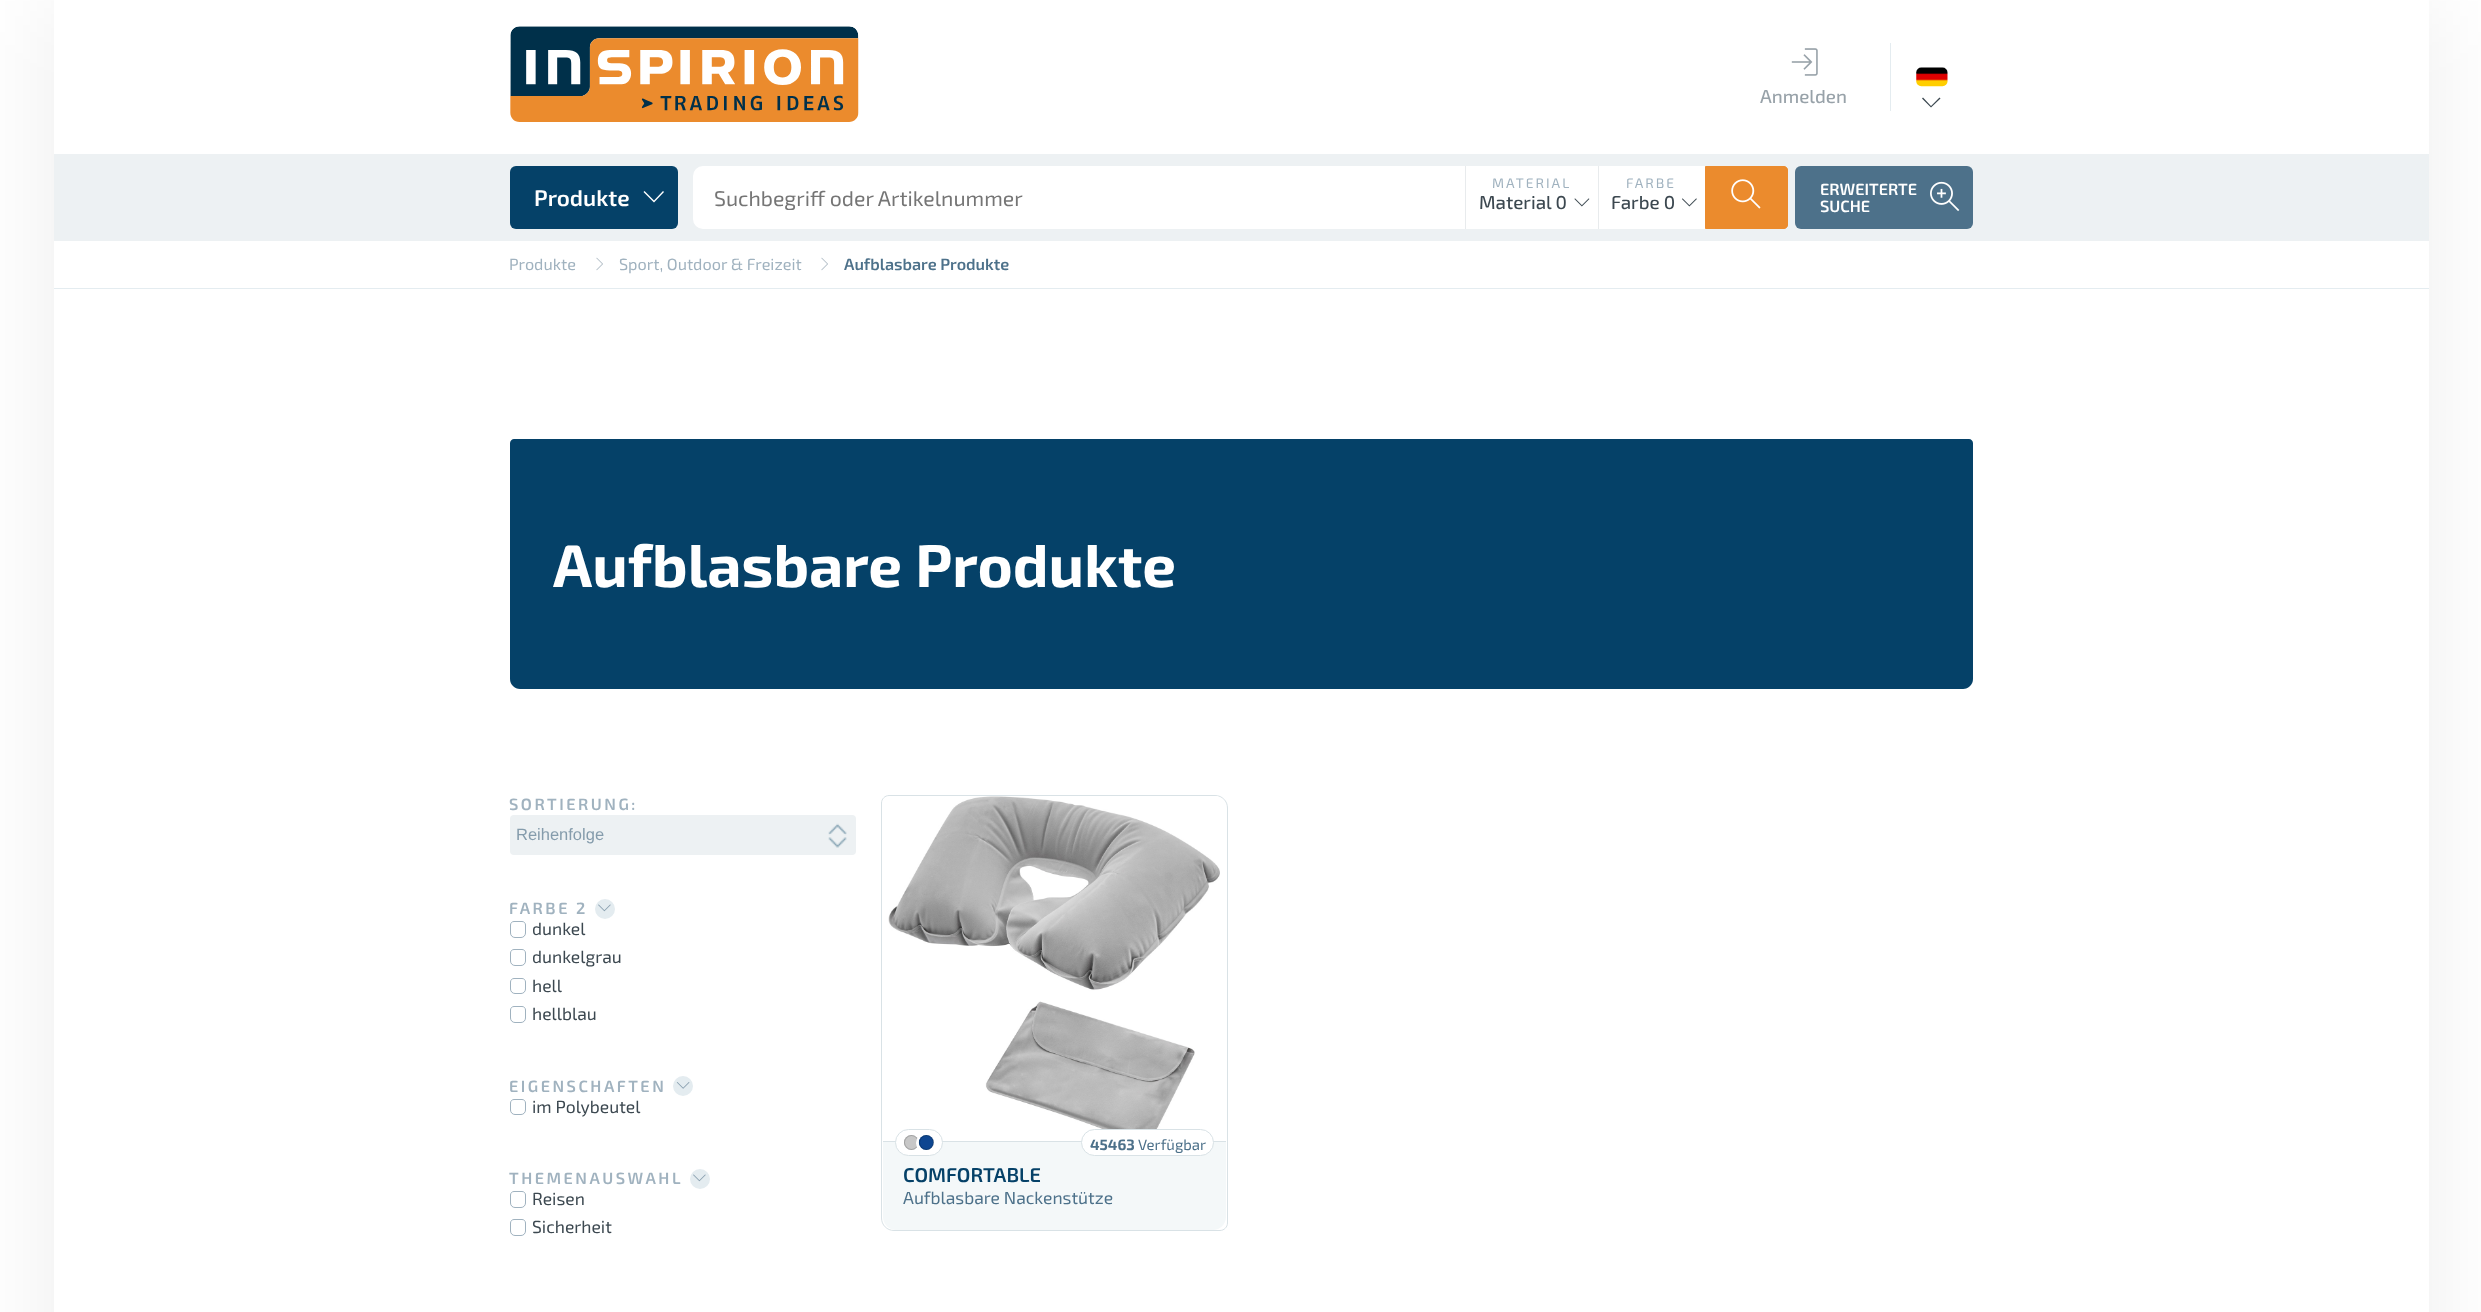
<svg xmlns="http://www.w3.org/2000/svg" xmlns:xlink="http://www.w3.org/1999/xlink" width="2481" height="1312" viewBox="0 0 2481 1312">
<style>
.cls-1{font:500 18.75px 'Exo 2';fill:#98a2a9}
.cls-2{font:600 22.5px 'Exo 2';fill:#ffffff}
.cls-3{font:21.25px 'Exo 2';fill:#757575}
.cls-4{font:13.75px 'Exo 2';letter-spacing:2px;fill:#a0b2bf}
.cls-5{font:500 18.75px 'Exo 2';fill:#3c4850}
.cls-6{font:600 16.25px 'Exo 2';fill:#ffffff}
.cls-7{font:16.25px 'Exo 2';fill:#a0b2bf}
.cls-8{font:600 16.25px 'Exo 2';fill:#4d718a}
.cls-9{font:bold 60px 'Exo 2';fill:#ffffff}
.cls-10{font:600 16.25px 'Exo 2';letter-spacing:2.5px;fill:#a0b2bf}
.cls-11{font:16.5px Liberation Sans;fill:#859cac}
.cls-12{font:17.5px 'Exo 2';fill:#3c4850}
.cls-13{font:bold 15px 'Exo 2';fill:#4d718a}
.cls-14{font:15px 'Exo 2';fill:#4d718a}
.cls-15{font:600 20px 'Exo 2';fill:#054168}
.cls-16{font:17.5px 'Exo 2';fill:#4d718a}
</style>
<defs>
<clipPath id="clip1"><rect x="714" y="185" width="741" height="25"/></clipPath>
</defs>
<rect width="100%" height="100%" fill="#ffffff"/>
<rect fill="#000000" fill-opacity="0.07" filter="blur(47px)" x="54" y="1" width="2375" height="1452"/>
<rect fill="#ffffff" x="54" y="0" width="2375" height="1312"/>
<image xlink:href="image0.png" x="510" y="26" width="349" height="96"/>
<image xlink:href="image1.png" x="1791" y="48" width="27" height="28"/>
<rect fill="#e4ecf0" x="1890" y="43" width="1" height="68"/>
<image xlink:href="image2.png" x="1916" y="67" width="32" height="20"/>
<path fill="#3c4850" d="M1940.5 98.5L1931 107.5L1922 98.5L1923 97.5L1931 106L1939.5 97.5Z"/>
<rect fill="#edf1f3" x="54" y="154" width="2375" height="87"/>
<rect fill="#054168" x="510" y="166" width="168" height="63" rx="6"/>
<path fill="#ffffff" d="M664 192L654 202.5L643.5 192L644.5 191L654 200.5L663 191Z"/>
<rect fill="#ffffff" x="693" y="166" width="1095" height="63" rx="10"/>
<rect fill="#e8ebed" x="1465" y="166" width="1" height="63"/>
<image xlink:href="image3.png" x="1574" y="198" width="16" height="9"/>
<rect fill="#e8ebed" x="1598" y="166" width="1" height="63"/>
<image xlink:href="image4.png" x="1682" y="198" width="15" height="9"/>
<path fill="#eb8b2d" stroke="#eb8b2d" d="M1705.5 166.5H1784C1786 166.5 1787.5 168 1787.5 170V225C1787.5 227 1786 228.5 1784 228.5H1705.5Z"/>
<image xlink:href="image5.png" x="1731" y="179" width="30" height="30"/>
<rect fill="#4d718a" x="1795" y="166" width="178" height="63" rx="6"/>
<image xlink:href="image6.png" x="1930" y="181" width="30" height="31"/>
<rect fill="#e4ecf0" x="54" y="288" width="2375" height="1"/>
<image xlink:href="image7.png" x="596" y="257" width="7" height="14"/>
<image xlink:href="image7.png" x="821" y="257" width="7" height="14"/>
<path fill="#054168" d="M514 439H1969C1971 439 1973 441 1973 443V679C1973 684.5 1968.5 689 1963 689H520C514.5 689 510 684.5 510 679V443C510 441 512 439 514 439Z"/>
<rect fill="#edf1f3" x="510" y="815" width="346" height="40" rx="4"/>
<image xlink:href="image8.png" x="828" y="823" width="19" height="25"/>
<circle fill="#e4ecf0" cx="605" cy="909" r="10"/>
<image xlink:href="image9.png" x="598" y="904" width="13" height="8"/>
<path fill="none" stroke="#a0b2bf" d="M514 921.5H522C524 921.5 525.5 923 525.5 925V933C525.5 935.5 523.5 937.5 521 937.5H515C512.5 937.5 510.5 935.5 510.5 933V925C510.5 923 512 921.5 514 921.5Z"/>
<path fill="none" stroke="#a0b2bf" d="M514 949.5H522C524 949.5 525.5 951 525.5 953V961C525.5 963.5 523.5 965.5 521 965.5H515C512.5 965.5 510.5 963.5 510.5 961V953C510.5 951 512 949.5 514 949.5Z"/>
<path fill="none" stroke="#a0b2bf" d="M514 978.5H522C524 978.5 525.5 980 525.5 982V989C525.5 991.5 523.5 993.5 521 993.5H515C512.5 993.5 510.5 991.5 510.5 989V982C510.5 980 512 978.5 514 978.5Z"/>
<path fill="none" stroke="#a0b2bf" d="M514 1006.5H522C524 1006.5 525.5 1008 525.5 1010V1018C525.5 1020.5 523.5 1022.5 521 1022.5H515C512.5 1022.5 510.5 1020.5 510.5 1018V1010C510.5 1008 512 1006.5 514 1006.5Z"/>
<circle fill="#e4ecf0" cx="683" cy="1086" r="10"/>
<image xlink:href="image10.png" x="676" y="1082" width="14" height="7"/>
<path fill="none" stroke="#a0b2bf" d="M514 1099.5H522C524 1099.5 525.5 1101 525.5 1103V1110C525.5 1112.5 523.5 1114.5 521 1114.5H515C512.5 1114.5 510.5 1112.5 510.5 1110V1103C510.5 1101 512 1099.5 514 1099.5Z"/>
<circle fill="#e4ecf0" cx="700" cy="1179" r="10"/>
<image xlink:href="image9.png" x="693" y="1174" width="13" height="8"/>
<path fill="none" stroke="#a0b2bf" d="M514 1191.5H522C524 1191.5 525.5 1193 525.5 1195V1203C525.5 1205.5 523.5 1207.5 521 1207.5H515C512.5 1207.5 510.5 1205.5 510.5 1203V1195C510.5 1193 512 1191.5 514 1191.5Z"/>
<path fill="none" stroke="#a0b2bf" d="M514 1219.5H522C524 1219.5 525.5 1221 525.5 1223V1231C525.5 1233.5 523.5 1235.5 521 1235.5H515C512.5 1235.5 510.5 1233.5 510.5 1231V1223C510.5 1221 512 1219.5 514 1219.5Z"/>
<path fill="none" stroke="#d9e2e6" d="M889 795.5H1215C1222 795.5 1227.5 801 1227.5 808V1223C1227.5 1227 1224 1230.5 1220 1230.5H894C887 1230.5 881.5 1225 881.5 1218V803C881.5 799 885 795.5 889 795.5Z"/>
<path fill="#ffffff" d="M894 796H1215C1221 796 1226 801 1226 807V1141H883V807C883 801 888 796 894 796Z"/>
<image xlink:href="image11.png" x="888" y="796" width="332" height="345"/>
<path fill="#f4f8f9" d="M883 1141H1226V1217C1226 1224 1220 1230 1213 1230H896C889 1230 883 1224 883 1217Z"/>
<rect fill="#d9e2e6" x="883" y="1141" width="343" height="1"/>
<rect fill="#ffffff" stroke="#d9e2e6" x="895.5" y="1129.5" width="47" height="26" rx="13"/>
<circle fill="#edf1f3" cx="911.5" cy="1142.5" r="7.5"/>
<image xlink:href="image12.png" x="904" y="1135" width="14" height="15"/>
<circle fill="none" stroke="#000000" stroke-opacity="0.2" cx="911.5" cy="1142.5" r="7"/>
<circle fill="none" stroke="#ffffff" stroke-width="3" cx="926" cy="1143" r="8.5"/>
<circle fill="#edf1f3" cx="926.5" cy="1142.5" r="7.5"/>
<image xlink:href="image13.png" x="918" y="1135" width="16" height="15"/>
<circle fill="none" stroke="#000000" stroke-opacity="0.2" cx="926.5" cy="1142.5" r="7"/>
<rect fill="#ffffff" stroke="#d9e2e6" x="1081.5" y="1129.5" width="132" height="26" rx="13"/>
<text class="cls-1" x="1760" y="103">Anmelden</text>
<text class="cls-2" x="534" y="206">Produkte</text>
<g clip-path="url(#clip1)">
<text class="cls-3" x="714" y="206">Suchbegriff oder Artikelnummer</text>
</g>
<text class="cls-4" x="1492" y="188">MATERIAL</text>
<text class="cls-5" x="1479" y="209">Material 0</text>
<text class="cls-4" x="1626" y="188">FARBE</text>
<text class="cls-5" x="1611" y="209">Farbe 0</text>
<text class="cls-6"><tspan x="1820" y="195">ERWEITERTE</tspan><tspan x="1820" y="212">SUCHE</tspan></text>
<text class="cls-7" x="509" y="270">Produkte</text>
<text class="cls-7" x="619" y="270">Sport, Outdoor &amp; Freizeit</text>
<text class="cls-8" x="844" y="270">Aufblasbare Produkte</text>
<text class="cls-9" x="553" y="587">Aufblasbare Produkte</text>
<text class="cls-10" x="509" y="810">SORTIERUNG:</text>
<text class="cls-11" x="516" y="840">Reihenfolge</text>
<text class="cls-10" x="509" y="914">FARBE 2</text>
<text class="cls-12"><tspan x="532" y="935">dunkel</tspan><tspan x="532" y="963">dunkelgrau</tspan><tspan x="532" y="992">hell</tspan><tspan x="532" y="1020">hellblau</tspan></text>
<text class="cls-10" x="509" y="1092">EIGENSCHAFTEN</text>
<text class="cls-12" x="532" y="1113">im Polybeutel</text>
<text class="cls-10" x="509" y="1184">THEMENAUSWAHL</text>
<text class="cls-12"><tspan x="532" y="1205">Reisen</tspan><tspan x="532" y="1233">Sicherheit</tspan></text>
<text class="cls-13" x="1090" y="1150">45463</text>
<text class="cls-14" x="1138" y="1150">Verfügbar</text>
<text class="cls-15" x="903" y="1182">COMFORTABLE</text>
<text class="cls-16" x="903" y="1204">Aufblasbare Nackenstütze</text>
</svg>
